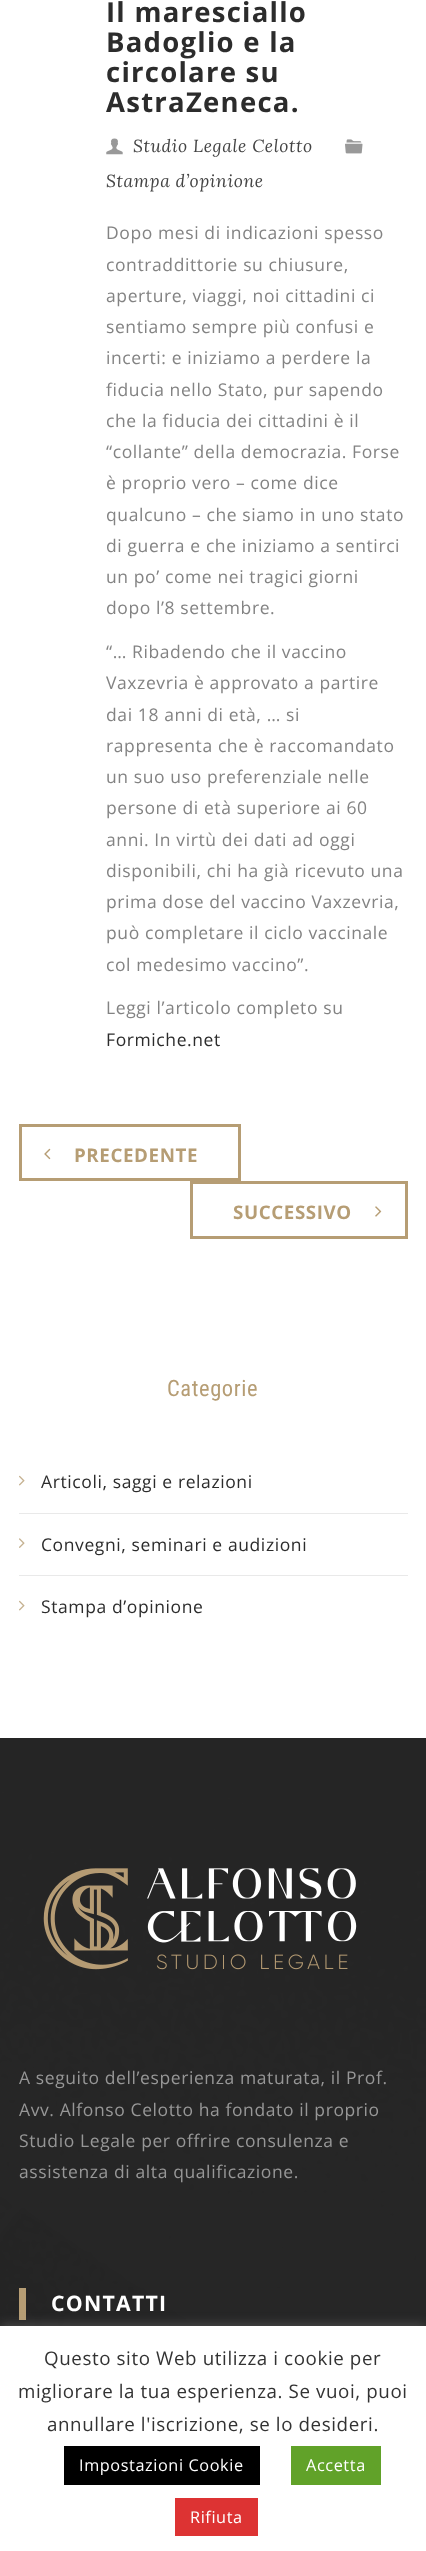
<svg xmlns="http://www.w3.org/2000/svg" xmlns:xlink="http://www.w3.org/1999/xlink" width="426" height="2551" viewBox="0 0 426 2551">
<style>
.cls-1{font:bold 27.5px Open Sans;letter-spacing:1.25px;fill:#2c2c2c}
.cls-2{font:italic 17.5px Lora;letter-spacing:0.6px;fill:#444444}
.cls-3{font:17.5px Open Sans;letter-spacing:0.6px;fill:#838383}
.cls-4{font:17.5px Open Sans;letter-spacing:0.6px;fill:#2c2c2c}
.cls-5{font:bold 18.75px Open Sans;letter-spacing:0.6px;fill:#b69d74}
.cls-6{font:22.5px Roboto Condensed;letter-spacing:0.6px;fill:#b69d74}
.cls-7{font:17.5px Open Sans;letter-spacing:0.6px;fill:#979797}
.cls-8{font:bold 21.25px Open Sans;letter-spacing:1.25px;fill:#ffffff}
.cls-9{font:18.75px Open Sans;letter-spacing:0.6px;fill:#333333}
.cls-10{font:16.25px Open Sans;letter-spacing:0.6px;fill:#ffffff}
</style>
<rect width="100%" height="100%" fill="#ffffff"/>
<image xlink:href="image0.png" x="106" y="138" width="17" height="17"/>
<image xlink:href="image1.png" x="345" y="139" width="18" height="15"/>
<rect fill="none" stroke="#b69d74" stroke-width="3" x="20.5" y="1125.5" width="219" height="54"/>
<image xlink:href="image2.png" x="44" y="1148" width="7" height="12"/>
<rect fill="none" stroke="#b69d74" stroke-width="3" x="191.5" y="1182.5" width="215" height="55"/>
<image xlink:href="image3.png" x="375" y="1206" width="7" height="11"/>
<image xlink:href="image4.png" x="19" y="1475" width="6" height="11"/>
<rect fill="#e9e9e9" x="19" y="1513" width="389" height="1"/>
<image xlink:href="image5.png" x="19" y="1538" width="6" height="10"/>
<rect fill="#e9e9e9" x="19" y="1575" width="389" height="1"/>
<image xlink:href="image4.png" x="19" y="1600" width="6" height="11"/>
<image xlink:href="image6.png" x="0" y="1738" width="426" height="588"/>
<image xlink:href="image7.png" x="43" y="1868" width="314" height="102"/>
<rect fill="#b69d74" x="19" y="2288" width="7" height="32"/>
<rect fill="#acabab" fill-opacity="0.3" filter="blur(6px)" x="0" y="2325" width="426" height="225"/>
<rect fill="#ffffff" x="0" y="2326" width="426" height="225"/>
<rect fill="#000000" x="64" y="2446" width="196" height="39"/>
<rect fill="#61a229" x="291" y="2446" width="90" height="39"/>
<rect fill="#dd3333" x="175" y="2498" width="83" height="38"/>
<text class="cls-1"><tspan x="106" y="22">Il maresciallo</tspan><tspan x="106" y="52">Badoglio e la</tspan><tspan x="106" y="82">circolare su</tspan><tspan x="106" y="112">AstraZeneca.</tspan></text>
<text class="cls-2" x="133" y="152">Studio Legale Celotto</text>
<text class="cls-2" x="106" y="187">Stampa d’opinione</text>
<text class="cls-3"><tspan x="106" y="239">Dopo mesi di indicazioni spesso</tspan><tspan x="106" y="271">contraddittorie su chiusure,</tspan><tspan x="106" y="302">aperture, viaggi, noi cittadini ci</tspan><tspan x="106" y="333">sentiamo sempre più confusi e</tspan><tspan x="106" y="364">incerti: e iniziamo a perdere la</tspan><tspan x="106" y="396">fiducia nello Stato, pur sapendo</tspan><tspan x="106" y="427">che la fiducia dei cittadini è il</tspan><tspan x="106" y="458">“collante” della democrazia. Forse</tspan><tspan x="106" y="489">è proprio vero – come dice</tspan><tspan x="106" y="521">qualcuno – che siamo in uno stato</tspan><tspan x="106" y="552">di guerra e che iniziamo a sentirci</tspan><tspan x="106" y="583">un po’ come nei tragici giorni</tspan><tspan x="106" y="614">dopo l’8 settembre.</tspan></text>
<text class="cls-3"><tspan x="106" y="658">“… Ribadendo che il vaccino</tspan><tspan x="106" y="689">Vaxzevria è approvato a partire</tspan><tspan x="106" y="721">dai 18 anni di età, … si</tspan><tspan x="106" y="752">rappresenta che è raccomandato</tspan><tspan x="106" y="783">un suo uso preferenziale nelle</tspan><tspan x="106" y="814">persone di età superiore ai 60</tspan><tspan x="106" y="846">anni. In virtù dei dati ad oggi</tspan><tspan x="106" y="877">disponibili, chi ha già ricevuto una</tspan><tspan x="106" y="908">prima dose del vaccino Vaxzevria,</tspan><tspan x="106" y="939">può completare il ciclo vaccinale</tspan><tspan x="106" y="971">col medesimo vaccino”.</tspan></text>
<text class="cls-3" x="106" y="1014">Leggi l’articolo completo su</text>
<text class="cls-4" x="106" y="1046">Formiche.net</text>
<text class="cls-5" x="74" y="1162">PRECEDENTE</text>
<text class="cls-5" x="233" y="1219">SUCCESSIVO</text>
<text class="cls-6" x="167" y="1396">Categorie</text>
<text class="cls-4" x="41" y="1488">Articoli, saggi e relazioni</text>
<text class="cls-4" x="41" y="1551">Convegni, seminari e audizioni</text>
<text class="cls-4" x="41" y="1613">Stampa d’opinione</text>
<text class="cls-7"><tspan x="19" y="2084">A seguito dell’esperienza maturata, il Prof.</tspan><tspan x="19" y="2116">Avv. Alfonso Celotto ha fondato il proprio</tspan><tspan x="19" y="2147">Studio Legale per offrire consulenza e</tspan><tspan x="19" y="2178">assistenza di alta qualificazione.</tspan></text>
<text class="cls-8" x="51" y="2311">CONTATTI</text>
<text class="cls-9" x="44" y="2365">Questo sito Web utilizza i cookie per</text>
<text class="cls-9" x="18" y="2398">migliorare la tua esperienza. Se vuoi, puoi</text>
<text class="cls-9" x="47" y="2431">annullare l'iscrizione, se lo desideri.</text>
<text class="cls-10" x="79" y="2471">Impostazioni Cookie</text>
<text class="cls-10" x="306" y="2471">Accetta</text>
<text class="cls-10" x="190" y="2523">Rifiuta</text>
</svg>
